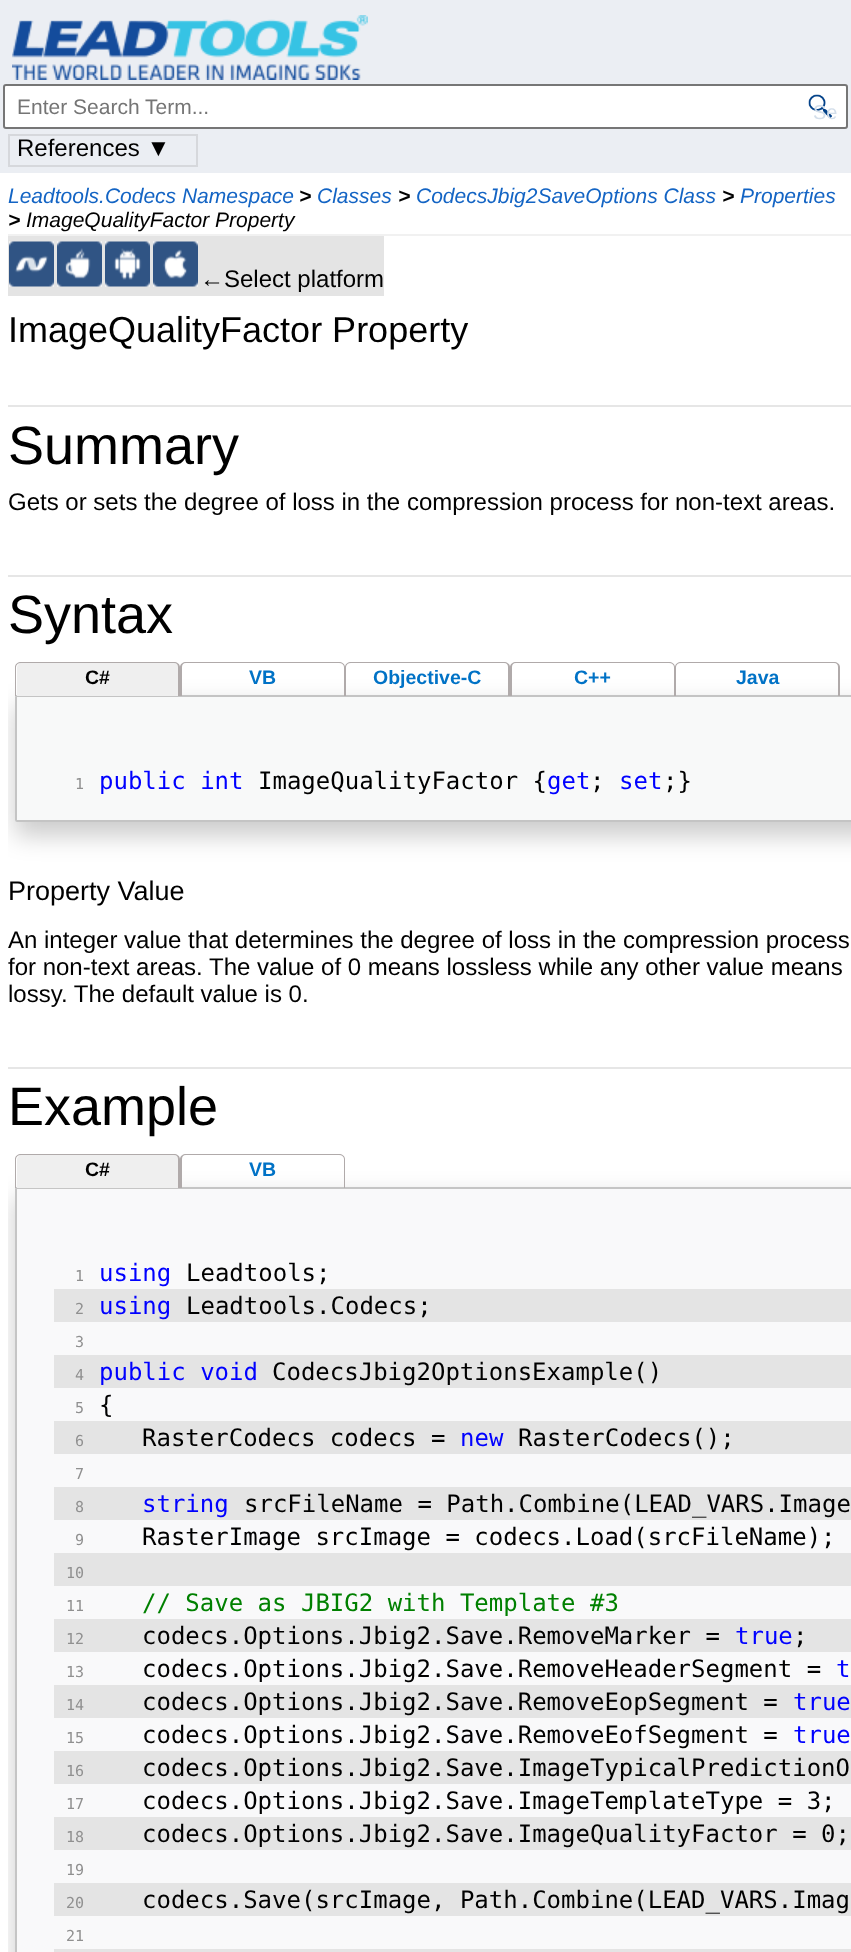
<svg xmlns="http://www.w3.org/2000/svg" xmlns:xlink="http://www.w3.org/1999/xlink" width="851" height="1952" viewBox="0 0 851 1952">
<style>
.cls-1{font:21px Liberation Sans;fill:#757575}
.cls-2{font:20px Liberation Sans;fill:#d3deea}
.cls-3{font:24px Liberation Sans;fill:#000000}
.cls-4{font:italic 21px Liberation Sans;fill:#1364c4}
.cls-5{font:italic bold 21px Liberation Sans;fill:#000000}
.cls-6{font:italic 21px Liberation Sans;fill:#000000}
.cls-7{font:36px Liberation Sans;fill:#000000}
.cls-8{font:54px Liberation Sans;fill:#000000}
.cls-9{font:bold 19.5px Liberation Sans;fill:#000000}
.cls-10{font:bold 19.5px Liberation Sans;fill:#0072c6}
.cls-11{font:15px DejaVu Sans Mono;fill:#909090}
.cls-12{font:24px DejaVu Sans Mono;fill:#0000ff}
.cls-13{font:24px DejaVu Sans Mono;fill:#000000}
.cls-14{font:27px Liberation Sans;fill:#000000}
.cls-15{font:24px DejaVu Sans Mono;fill:#008000}
</style>
<defs>
<clipPath id="clip1"><rect x="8" y="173" width="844" height="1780"/></clipPath>
<clipPath id="clip2"><path d="M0 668H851V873H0ZM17 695H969C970 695 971 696 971 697V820C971 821 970 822 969 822H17C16 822 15 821 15 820V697C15 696 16 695 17 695Z" clip-rule="evenodd"/></clipPath>
</defs>
<rect width="100%" height="100%" fill="#ffffff"/>
<rect fill="#ebeef3" x="0" y="0" width="851" height="173"/>
<image xlink:href="image0.png" x="12" y="15" width="356" height="65"/>
<rect fill="#ffffff" stroke="#767676" stroke-width="2" x="4" y="85" width="843" height="43" rx="2"/>
<image xlink:href="image1.png" x="808" y="94" width="24" height="24"/>
<rect fill="none" stroke="#d6d8dc" stroke-width="2" x="9" y="135" width="188" height="31"/>
<rect fill="#f1f1f1" x="8" y="234" width="843" height="2"/>
<rect fill="#e4e4e4" x="8" y="236" width="376" height="60"/>
<image xlink:href="image2.png" x="9" y="241" width="45" height="46"/>
<image xlink:href="image3.png" x="57" y="241" width="45" height="46"/>
<image xlink:href="image4.png" x="105" y="241" width="45" height="46"/>
<image xlink:href="image5.png" x="153" y="241" width="45" height="46"/>
<rect fill="#e6e6e6" x="8" y="405" width="843" height="2"/>
<rect fill="#e6e6e6" x="8" y="575" width="843" height="2"/>
<g clip-path="url(#clip1)">
<g clip-path="url(#clip2)">
<rect fill="#000000" fill-opacity="0.2" filter="blur(12px)" x="15" y="705" width="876" height="131" rx="4"/>
</g>
</g>
<path fill="#eeeff0" fill-opacity="0.4" d="M17 695H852V822H17C16 822 15 821 15 820V697C15 696 16 695 17 695Z"/>
<rect fill="none" stroke="#767676" stroke-opacity="0.4" stroke-width="2" x="16" y="696" width="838" height="125" rx="1"/>
<path fill="#efefef" d="M22 663H174C177 663 179 665 179 668V696H17V668C17 665 19 663 22 663Z"/>
<path fill="#b0aaaa" fill-rule="evenodd" d="M21 662H174C177 662 180 664 180 667V696H15V667C15 664 18 662 21 662ZM21 663H174C177 663 178 665 178 667V696H16V667C16 665 18 663 21 663Z"/>
<path fill="#b0aaaa" fill-rule="evenodd" d="M186 662H339C342 662 345 664 345 667V696H180V667C180 664 183 662 186 662ZM186 663H339C342 663 344 665 344 667V696H182V667C182 665 183 663 186 663Z"/>
<path fill="#b0aaaa" fill-rule="evenodd" d="M351 662H504C507 662 510 664 510 667V696H345V667C345 664 348 662 351 662ZM351 663H504C507 663 508 665 508 667V696H346V667C346 665 348 663 351 663Z"/>
<path fill="#b0aaaa" fill-rule="evenodd" d="M516 662H669C672 662 675 664 675 667V696H510V667C510 664 513 662 516 662ZM516 663H669C672 663 674 665 674 667V696H512V667C512 665 513 663 516 663Z"/>
<path fill="#b0aaaa" fill-rule="evenodd" d="M681 662H834C837 662 840 664 840 667V696H675V667C675 664 678 662 681 662ZM681 663H834C837 663 838 665 838 667V696H676V667C676 665 678 663 681 663Z"/>
<rect fill="#e6e6e6" x="8" y="1067" width="843" height="2"/>
<g clip-path="url(#clip1)">
<rect fill="#000000" fill-opacity="0.2" filter="blur(12px)" x="15" y="1197" width="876" height="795" rx="4"/>
</g>
<path fill="#f9f9fa" d="M17 1187H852V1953H15V1189C15 1188 16 1187 17 1187Z"/>
<rect fill="none" stroke="#c5c5c5" stroke-width="2" x="16" y="1188" width="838" height="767" rx="1"/>
<path fill="#efefef" d="M22 1155H174C177 1155 179 1157 179 1160V1188H17V1160C17 1157 19 1155 22 1155Z"/>
<path fill="#b0aaaa" fill-rule="evenodd" d="M21 1154H174C177 1154 180 1156 180 1159V1188H15V1159C15 1156 18 1154 21 1154ZM21 1155H174C177 1155 178 1157 178 1159V1188H16V1159C16 1157 18 1155 21 1155Z"/>
<path fill="#b0aaaa" fill-rule="evenodd" d="M186 1154H339C342 1154 345 1156 345 1159V1188H180V1159C180 1156 183 1154 186 1154ZM186 1155H339C342 1155 344 1157 344 1159V1188H182V1159C182 1157 183 1155 186 1155Z"/>
<rect fill="#e4e4e4" x="54" y="1289" width="797" height="33"/>
<rect fill="#e4e4e4" x="54" y="1355" width="797" height="33"/>
<rect fill="#e4e4e4" x="54" y="1421" width="797" height="33"/>
<rect fill="#e4e4e4" x="54" y="1487" width="797" height="33"/>
<rect fill="#e4e4e4" x="54" y="1553" width="797" height="33"/>
<rect fill="#e4e4e4" x="54" y="1619" width="797" height="33"/>
<rect fill="#e4e4e4" x="54" y="1685" width="797" height="33"/>
<rect fill="#e4e4e4" x="54" y="1751" width="797" height="33"/>
<rect fill="#e4e4e4" x="54" y="1817" width="797" height="33"/>
<rect fill="#e4e4e4" x="54" y="1883" width="797" height="33"/>
<rect fill="#e4e4e4" x="54" y="1949" width="797" height="3"/>
<text class="cls-1" x="17" y="114">Enter Search Term...</text>
<text class="cls-2" x="813" y="119">Se</text>
<text class="cls-3" x="17" y="156">References ▼</text>
<text class="cls-4" x="8" y="203">Leadtools.Codecs Namespace</text>
<text class="cls-5" x="299" y="203">&gt;</text>
<text class="cls-4" x="317" y="203">Classes</text>
<text class="cls-5" x="398" y="203">&gt;</text>
<text class="cls-4" x="416" y="203">CodecsJbig2SaveOptions Class</text>
<text class="cls-5" x="722" y="203">&gt;</text>
<text class="cls-4" x="740" y="203">Properties</text>
<text class="cls-5" x="8" y="227">&gt;</text>
<text class="cls-6" x="26" y="227">ImageQualityFactor Property</text>
<text class="cls-3" x="200" y="287">←Select platform</text>
<text class="cls-7" x="8" y="342">ImageQualityFactor Property</text>
<text class="cls-8" x="8" y="464">Summary</text>
<text class="cls-3" x="8" y="510">Gets or sets the degree of loss in the compression process for non-text areas.</text>
<text class="cls-8" x="8" y="633">Syntax</text>
<text class="cls-9" x="85" y="684">C#</text>
<text class="cls-10" x="249" y="684">VB</text>
<text class="cls-10" x="373" y="684">Objective-C</text>
<text class="cls-10" x="574" y="684">C++</text>
<text class="cls-10" x="736" y="684">Java</text>
<text class="cls-11" x="75" y="789">1</text>
<text class="cls-12" x="99" y="789">public int</text>
<text class="cls-13" x="258" y="789">ImageQualityFactor {</text>
<text class="cls-12" x="547" y="789">get</text>
<text class="cls-13" x="590" y="789">;</text>
<text class="cls-12" x="619" y="789">set</text>
<text class="cls-13" x="663" y="789">;}</text>
<text class="cls-14" x="8" y="900">Property Value</text>
<text class="cls-3"><tspan x="8" y="948">An integer value that determines the degree of loss in the compression process</tspan><tspan x="8" y="975">for non-text areas. The value of 0 means lossless while any other value means</tspan><tspan x="8" y="1002">lossy. The default value is 0.</tspan></text>
<text class="cls-8" x="8" y="1125">Example</text>
<text class="cls-9" x="85" y="1176">C#</text>
<text class="cls-10" x="249" y="1176">VB</text>
<text class="cls-11" x="75" y="1281">1</text>
<text class="cls-12" x="99" y="1281">using</text>
<text class="cls-13" x="186" y="1281">Leadtools;</text>
<text class="cls-11" x="75" y="1314">2</text>
<text class="cls-12" x="99" y="1314">using</text>
<text class="cls-13" x="186" y="1314">Leadtools.Codecs;</text>
<text class="cls-11" x="75" y="1347">3</text>
<text class="cls-11" x="75" y="1380">4</text>
<text class="cls-12" x="99" y="1380">public void</text>
<text class="cls-13" x="272" y="1380">CodecsJbig2OptionsExample()</text>
<text class="cls-11" x="75" y="1413">5</text>
<text class="cls-13" x="99" y="1413">{</text>
<text class="cls-11" x="75" y="1446">6</text>
<text class="cls-13" x="142" y="1446">RasterCodecs codecs =</text>
<text class="cls-12" x="460" y="1446">new</text>
<text class="cls-13" x="518" y="1446">RasterCodecs();</text>
<text class="cls-11" x="75" y="1479">7</text>
<text class="cls-11" x="75" y="1512">8</text>
<text class="cls-12" x="142" y="1512">string</text>
<text class="cls-13" x="244" y="1512">srcFileName = Path.Combine(LEAD_VARS.Image</text>
<text class="cls-11" x="75" y="1545">9</text>
<text class="cls-13" x="142" y="1545">RasterImage srcImage = codecs.Load(srcFileName);</text>
<text class="cls-11" x="66" y="1578">10</text>
<text class="cls-11" x="66" y="1611">11</text>
<text class="cls-15" x="142" y="1611">// Save as JBIG2 with Template #3</text>
<text class="cls-11" x="66" y="1644">12</text>
<text class="cls-13" x="142" y="1644">codecs.Options.Jbig2.Save.RemoveMarker =</text>
<text class="cls-12" x="735" y="1644">true</text>
<text class="cls-13" x="793" y="1644">;</text>
<text class="cls-11" x="66" y="1677">13</text>
<text class="cls-13" x="142" y="1677">codecs.Options.Jbig2.Save.RemoveHeaderSegment =</text>
<text class="cls-12" x="836" y="1677">t</text>
<text class="cls-11" x="66" y="1710">14</text>
<text class="cls-13" x="142" y="1710">codecs.Options.Jbig2.Save.RemoveEopSegment =</text>
<text class="cls-12" x="793" y="1710">true</text>
<text class="cls-11" x="66" y="1743">15</text>
<text class="cls-13" x="142" y="1743">codecs.Options.Jbig2.Save.RemoveEofSegment =</text>
<text class="cls-12" x="793" y="1743">true</text>
<text class="cls-11" x="66" y="1776">16</text>
<text class="cls-13" x="142" y="1776">codecs.Options.Jbig2.Save.ImageTypicalPredictionO</text>
<text class="cls-11" x="66" y="1809">17</text>
<text class="cls-13" x="142" y="1809">codecs.Options.Jbig2.Save.ImageTemplateType = 3;</text>
<text class="cls-11" x="66" y="1842">18</text>
<text class="cls-13" x="142" y="1842">codecs.Options.Jbig2.Save.ImageQualityFactor = 0;</text>
<text class="cls-11" x="66" y="1875">19</text>
<text class="cls-11" x="66" y="1908">20</text>
<text class="cls-13" x="142" y="1908">codecs.Save(srcImage, Path.Combine(LEAD_VARS.Imag</text>
<text class="cls-11" x="66" y="1941">21</text>
</svg>
